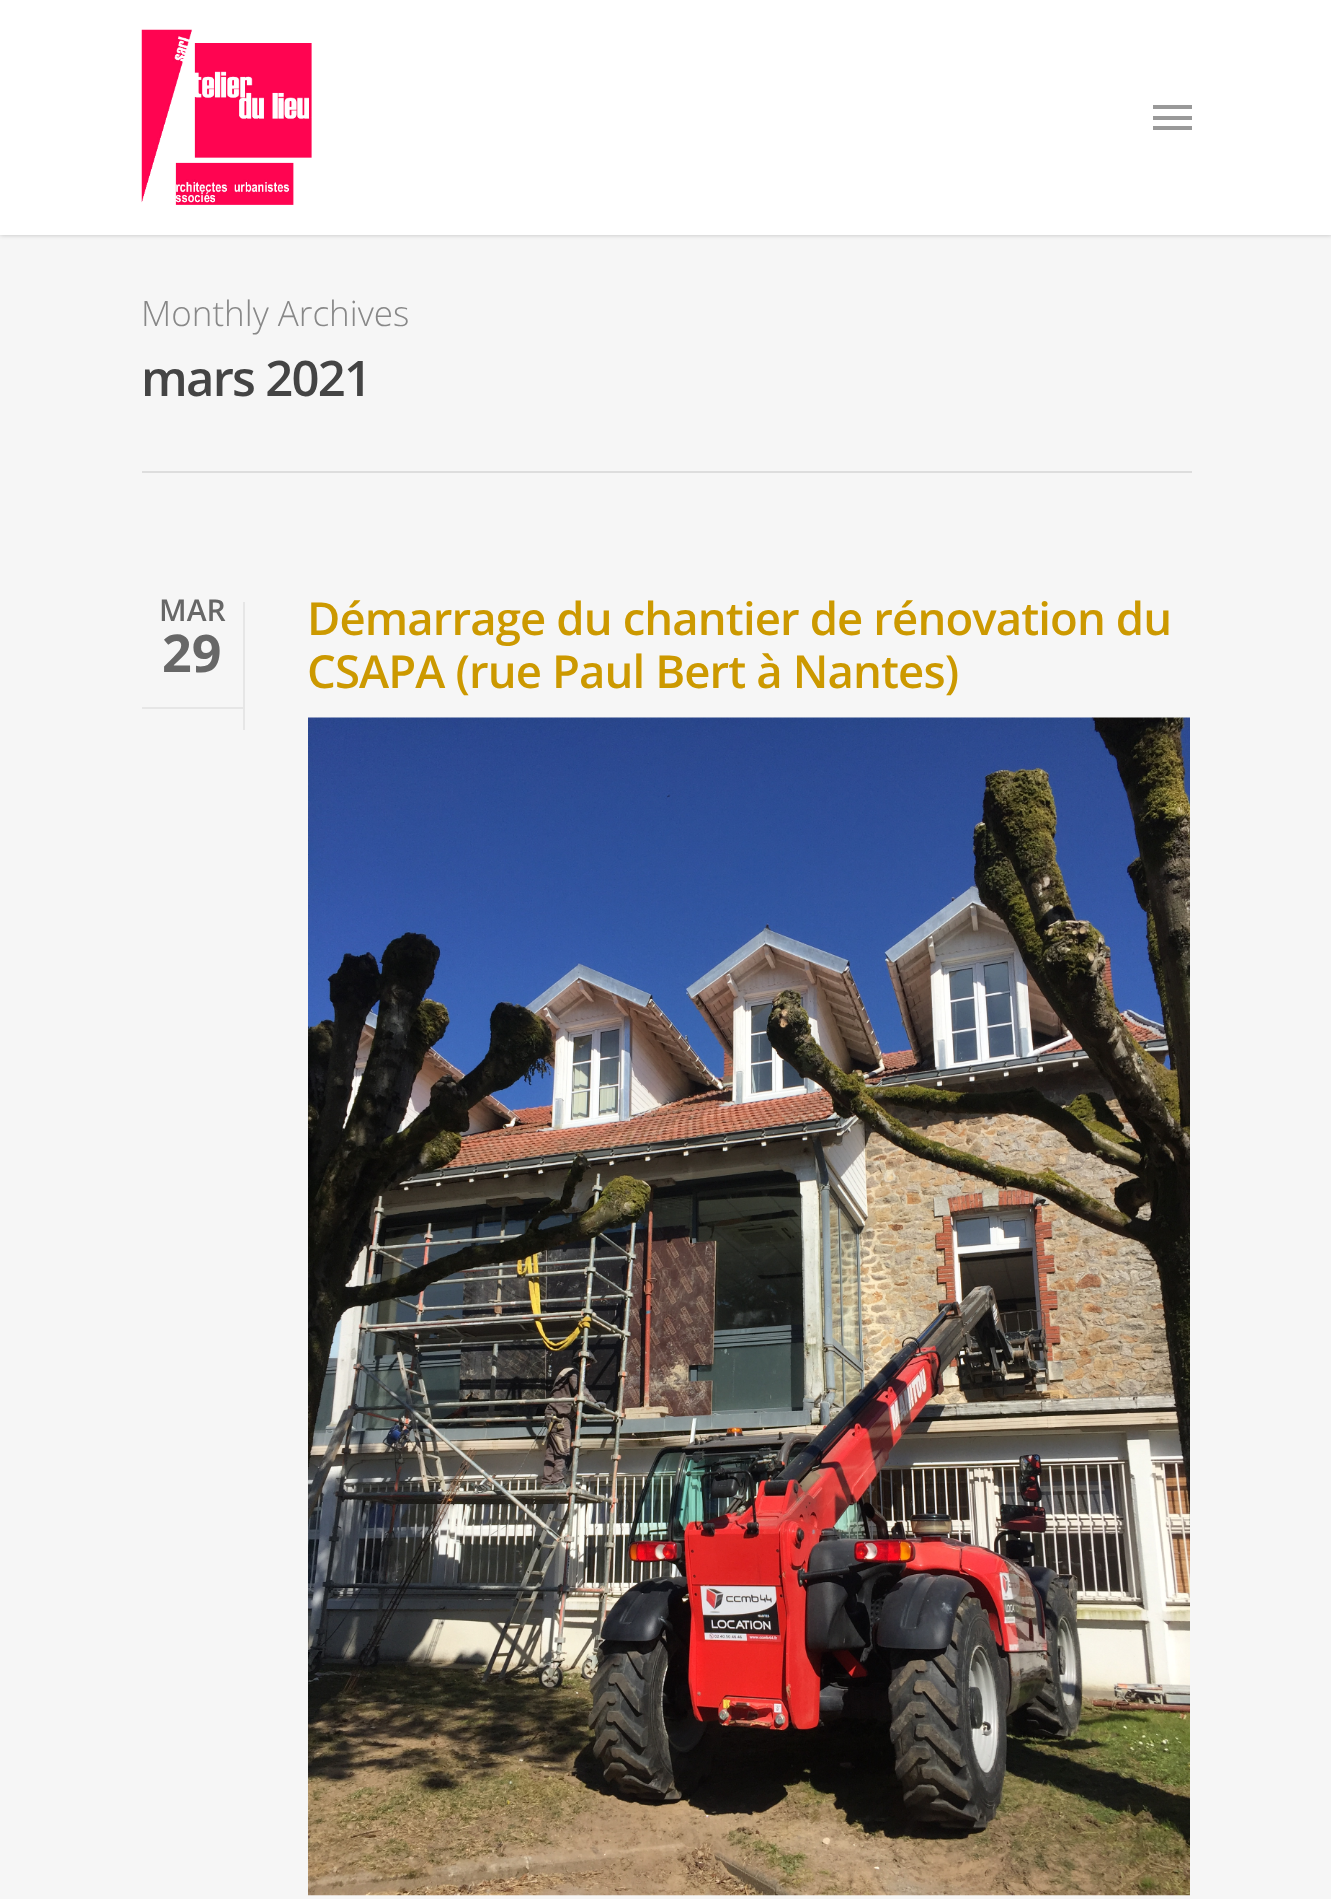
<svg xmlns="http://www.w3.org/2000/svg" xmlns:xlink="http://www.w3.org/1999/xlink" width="1331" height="1899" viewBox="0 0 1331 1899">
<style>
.cls-1{font:300 35px Open Sans;fill:#888888}
.cls-2{font:600 49px Open Sans;letter-spacing:-1.75px;fill:#444444}
.cls-3{font:600 30px Open Sans;fill:#676767}
.cls-4{font:bold 52px Open Sans;fill:#676767}
.cls-5{font:600 45.5px Open Sans;letter-spacing:-0.9px;fill:#cc9900}
</style>
<rect width="100%" height="100%" fill="#f6f6f6"/>
<rect fill="#000000" fill-opacity="0.22" filter="blur(2.5px)" x="0" y="0" width="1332" height="235"/>
<rect fill="#ffffff" x="0" y="0" width="1331" height="235"/>
<image xlink:href="image0.png" x="141" y="29" width="171" height="176"/>
<rect fill="#999999" x="1153" y="105" width="39" height="4"/>
<rect fill="#999999" x="1153" y="126" width="39" height="4"/>
<rect fill="#999999" x="1153" y="116" width="39" height="4"/>
<rect fill="#dddddd" x="142" y="471" width="1050" height="2"/>
<rect fill="#e6e6e6" x="243" y="602" width="2" height="128"/>
<rect fill="#e6e6e6" x="142" y="707" width="101" height="2"/>
<image xlink:href="image1.png" x="308" y="717" width="882" height="1179"/>
<text class="cls-1" x="141" y="326">Monthly Archives</text>
<text class="cls-2" x="141" y="396">mars 2021</text>
<text class="cls-3" x="159" y="621">MAR</text>
<text class="cls-4" x="162" y="672">29</text>
<text class="cls-5"><tspan x="307" y="635">Démarrage du chantier de rénovation du</tspan><tspan x="307" y="688">CSAPA (rue Paul Bert à Nantes)</tspan></text>
</svg>
